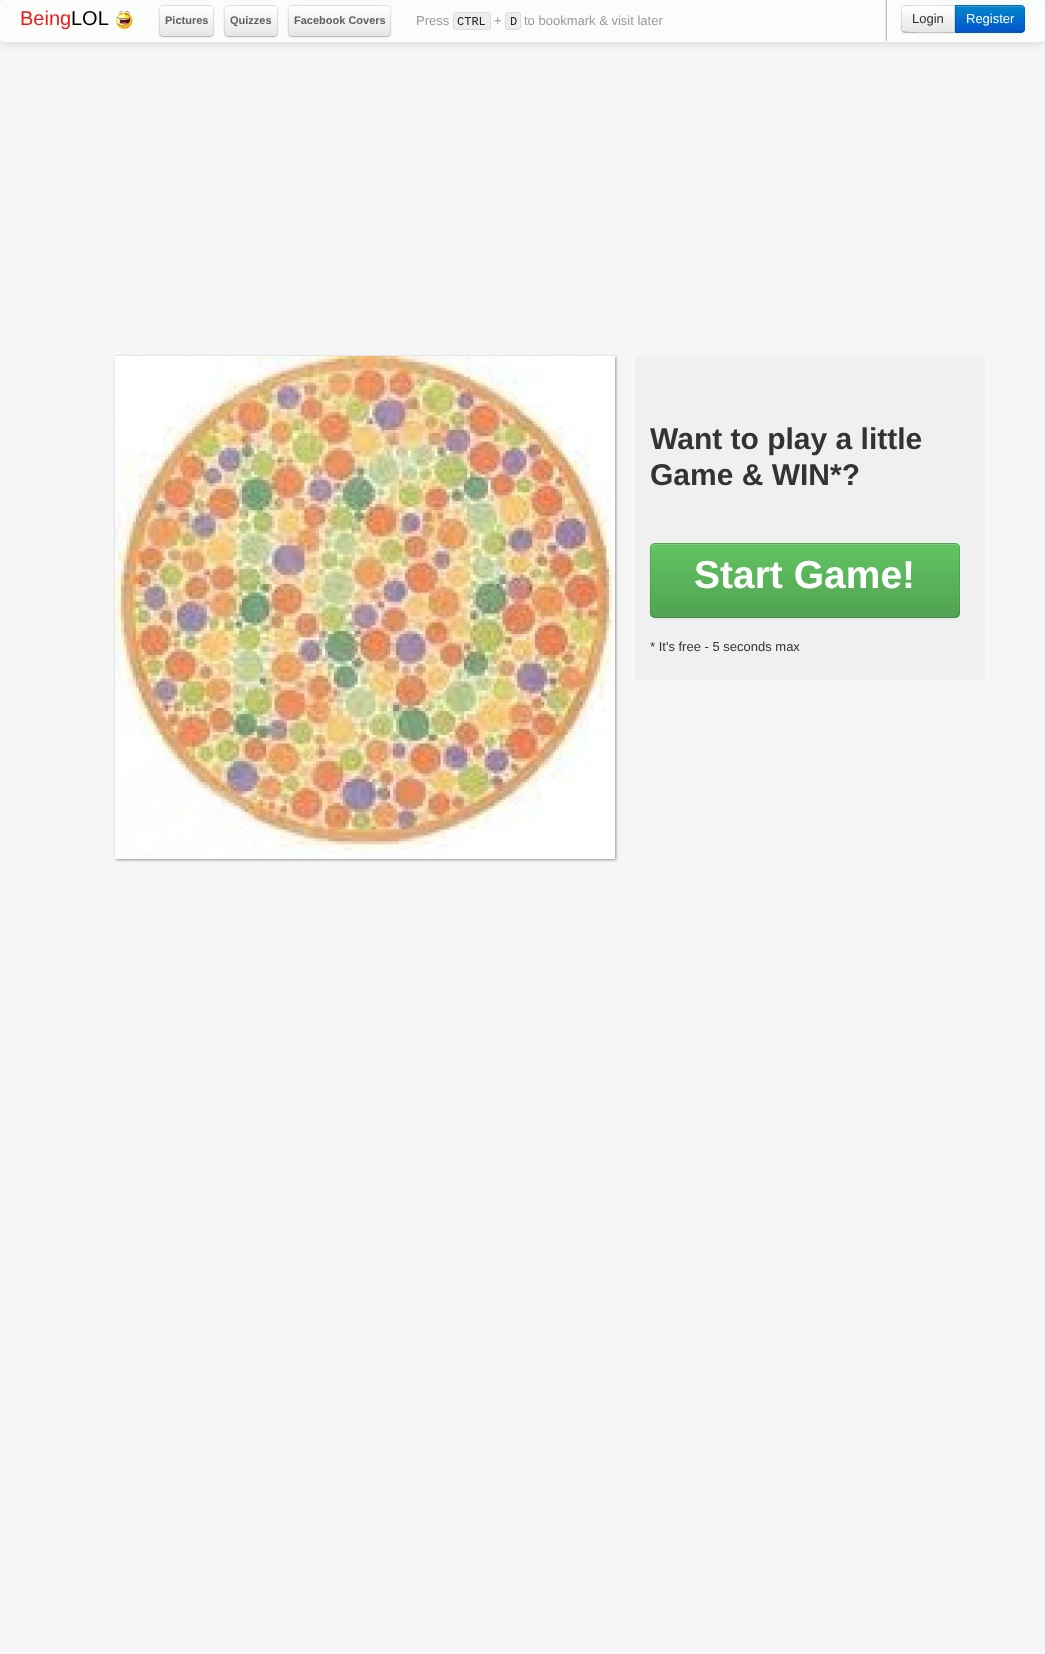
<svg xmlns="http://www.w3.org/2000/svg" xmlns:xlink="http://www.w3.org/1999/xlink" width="1045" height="1654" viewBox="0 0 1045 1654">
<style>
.cls-1{font:20px Liberation Sans;fill:#f01a18}
.cls-2{font:20px Liberation Sans;fill:#000000}
.cls-3{font:bold 11px Liberation Sans;fill:#606060}
.cls-4{font:13px Liberation Sans;fill:#999999}
.cls-5{font:12px Liberation Mono;fill:#222222}
.cls-6{font:13px Liberation Sans;fill:#333333}
.cls-7{font:13px Liberation Sans;fill:#ffffff}
.cls-8{font:bold 30px Liberation Sans;fill:#333333}
.cls-9{font:bold 39px Liberation Sans;fill:#ffffff}
</style>
<defs>
<clipPath id="clip1"><rect x="159" y="5" width="55" height="32" rx="4"/></clipPath>
<linearGradient id="g1" gradientUnits="userSpaceOnUse" x1="187" y1="6" x2="187" y2="36"><stop offset="0" stop-color="#ffffff"/><stop offset="1" stop-color="#e6e6e6"/></linearGradient>
<clipPath id="clip2"><rect x="224" y="5" width="54" height="32" rx="4"/></clipPath>
<linearGradient id="g2" gradientUnits="userSpaceOnUse" x1="251" y1="6" x2="251" y2="36"><stop offset="0" stop-color="#ffffff"/><stop offset="1" stop-color="#e6e6e6"/></linearGradient>
<clipPath id="clip3"><rect x="288" y="5" width="103" height="32" rx="4"/></clipPath>
<linearGradient id="g3" gradientUnits="userSpaceOnUse" x1="340" y1="6" x2="340" y2="36"><stop offset="0" stop-color="#ffffff"/><stop offset="1" stop-color="#e6e6e6"/></linearGradient>
<clipPath id="clip4"><path d="M905 5H955V33H905C903 33 901 31 901 29V9C901 7 903 5 905 5Z"/></clipPath>
<linearGradient id="g4" gradientUnits="userSpaceOnUse" x1="928" y1="6" x2="928" y2="32"><stop offset="0" stop-color="#ffffff"/><stop offset="1" stop-color="#e6e6e6"/></linearGradient>
<clipPath id="clip5"><path d="M955 5H1021C1023 5 1025 7 1025 9V29C1025 31 1023 33 1021 33H955Z"/></clipPath>
<linearGradient id="g5" gradientUnits="userSpaceOnUse" x1="990" y1="6" x2="990" y2="32"><stop offset="0" stop-color="#0088cc"/><stop offset="1" stop-color="#0055cc"/></linearGradient>
<clipPath id="clip6"><rect x="650" y="543" width="310" height="75" rx="5"/></clipPath>
<linearGradient id="g6" gradientUnits="userSpaceOnUse" x1="805" y1="544" x2="805" y2="617"><stop offset="0" stop-color="#62c462"/><stop offset="1" stop-color="#51a351"/></linearGradient>
</defs>
<rect width="100%" height="100%" fill="#f6f6f6"/>
<rect fill="#000000" fill-opacity="0.1" filter="blur(5px)" x="0" y="1" width="1045" height="43" rx="4"/>
<rect fill="#fafdfa" x="0" y="0" width="1045" height="43" rx="4"/>
<path fill="#e1e4e1" d="M0 38C0 41 1 43 4 43H1041C1044 43 1045 41 1045 38C1045 40 1043 42 1041 42H4C2 42 0 40 0 38Z"/>
<image xlink:href="image0.png" x="116" y="11" width="17" height="18"/>
<rect fill="#000000" fill-opacity="0.05" filter="blur(1px)" x="159" y="6" width="55" height="32" rx="4"/>
<rect fill="#f5f5f5" x="159" y="5" width="55" height="32" rx="4"/>
<g clip-path="url(#clip1)">
<rect fill="url(#g1)" x="159" y="6" width="55" height="30"/>
</g>
<path fill="#ffffff" d="M163 7H210C212 7 213 8 213 10C213 4 207 6 202 6H171C166 6 160 4 160 10C160 8 161 7 163 7Z"/>
<path fill="none" stroke="#b8b8b8" d="M212.5 35.5C212 36 211 36.5 210 36.5H163C162 36.5 161 36 160.5 35.5"/>
<path fill="none" stroke="#000000" stroke-opacity="0.1" d="M160.5 35.5C158.5 33 159.5 24 159.5 21C159.5 5.5 156.5 5.5 171 5.5H202C216.5 5.5 213.5 5.5 213.5 21C213.5 24 214.5 33 212.5 35.5"/>
<rect fill="#000000" fill-opacity="0.05" filter="blur(1px)" x="224" y="6" width="54" height="32" rx="4"/>
<rect fill="#f5f5f5" x="224" y="5" width="54" height="32" rx="4"/>
<g clip-path="url(#clip2)">
<rect fill="url(#g2)" x="224" y="6" width="54" height="30"/>
</g>
<path fill="#ffffff" d="M228 7H274C276 7 277 8 277 10C277 4 271 6 266 6H236C231 6 225 4 225 10C225 8 226 7 228 7Z"/>
<path fill="none" stroke="#b8b8b8" d="M276.5 35.5C276 36 275 36.5 274 36.5H228C227 36.5 226 36 225.5 35.5"/>
<path fill="none" stroke="#000000" stroke-opacity="0.1" d="M225.5 35.5C223.5 33 224.5 24 224.5 21C224.5 6 221.5 5.5 235.5 5.5H266.5C280.5 5.5 277.5 6 277.5 21C277.5 24 278.5 33 276.5 35.5"/>
<rect fill="#000000" fill-opacity="0.05" filter="blur(1px)" x="288" y="6" width="103" height="32" rx="4"/>
<rect fill="#f5f5f5" x="288" y="5" width="103" height="32" rx="4"/>
<g clip-path="url(#clip3)">
<rect fill="url(#g3)" x="288" y="6" width="103" height="30"/>
</g>
<path fill="none" stroke="#000000" stroke-opacity="0.25" d="M389.5 35.5L387 36.5H291.5L289.5 35.5"/>
<path fill="none" stroke="#000000" stroke-opacity="0.1" d="M289.5 35.5C287 33 288.5 28 288.5 25C288.5 2 284.5 5.5 308 5.5H371C394.5 5.5 390.5 2 390.5 25C390.5 28 392 33 389.5 35.5"/>
<rect fill="#ededed" stroke="#dbdbdb" x="453.5" y="12.5" width="37" height="17" rx="2.5"/>
<rect fill="#ededed" stroke="#dbdbdb" x="505.5" y="12.5" width="15" height="17" rx="2.5"/>
<rect fill="#f0f0f0" x="885" y="0" width="1" height="41"/>
<rect fill="#bbbbbb" x="886" y="0" width="1" height="41"/>
<rect fill="#000000" fill-opacity="0.05" filter="blur(1px)" x="901" y="6" width="54" height="28" rx="4"/>
<path fill="#f5f5f5" d="M905 5H955V33H905C903 33 901 31 901 29V9C901 7 903 5 905 5Z"/>
<g clip-path="url(#clip4)">
<rect fill="url(#g4)" x="901" y="6" width="54" height="26"/>
</g>
<path fill="#000000" fill-opacity="0.1" d="M905 5L902 6L903 7C905 5 948 6 954 6L955 5Z"/>
<path fill="#000000" fill-opacity="0.1" d="M955 5L954 6V32L955 33Z"/>
<path fill="#000000" fill-opacity="0.25" d="M955 33L954 32C948 32 905 33 903 31L902 32L905 33Z"/>
<path fill="#000000" fill-opacity="0.1" d="M901 9V29C901 30 901.5 31 902 32L903 31C902 31 902 30 902 29V9C902 8 902 7 903 7L902 6C901.5 7 901 8 901 9Z"/>
<rect fill="#000000" fill-opacity="0.05" filter="blur(1px)" x="955" y="6" width="70" height="28" rx="4"/>
<path fill="#0074cc" d="M955 5H1021C1023 5 1025 7 1025 9V29C1025 31 1023 33 1021 33H955Z"/>
<g clip-path="url(#clip5)">
<rect fill="url(#g5)" x="955" y="6" width="70" height="26"/>
</g>
<path fill="#339fd6" d="M956 7H1021C1023 7 1024 8 1024 10V9C1024 7 1023 6 1021 6H956Z"/>
<path fill="#000000" fill-opacity="0.1" d="M955 5L956 6C963 6 1022 5 1023 7L1024 6L1021 5Z"/>
<path fill="#000000" fill-opacity="0.1" d="M1025 29V9C1025 8 1024.5 7 1024 6L1023 7C1024 7 1024 8 1024 9V29C1024 30 1024 31 1023 31L1024 32C1024.5 31 1025 30 1025 29Z"/>
<path fill="#000000" fill-opacity="0.25" d="M1021 33L1024 32L1023 31C1022 33 963 32 956 32L955 33Z"/>
<path fill="#000000" fill-opacity="0.1" d="M955 5V33L956 32V6Z"/>
<rect fill="#000000" fill-opacity="0.4" filter="blur(1.5px)" x="116" y="357" width="500" height="503"/>
<image xlink:href="image1.png" x="115" y="356" width="500" height="503"/>
<rect fill="#f0f0f0" x="635" y="356" width="350" height="324"/>
<rect fill="#000000" fill-opacity="0.05" filter="blur(1px)" x="650" y="544" width="310" height="75" rx="5"/>
<rect fill="#5bb75b" x="650" y="543" width="310" height="75" rx="5"/>
<g clip-path="url(#clip6)">
<rect fill="url(#g6)" x="650" y="544" width="310" height="73"/>
</g>
<path fill="#81d081" d="M655 545H955C957 545 959 547 959 549C959 546 958 544 955 544H655L652 545C651 546 651 548 651 549C651 547 653 545 655 545Z"/>
<path fill="none" stroke="#000000" stroke-opacity="0.25" d="M958 616C957.5 617 956 617.5 955 617.5H655C654 617.5 652.5 617 652 616"/>
<path fill="none" stroke="#000000" stroke-opacity="0.1" d="M652 616C651 615.5 650.5 614 650.5 613V548C650.5 547 651 545.5 652 545C652.5 544 654 543.5 655 543.5H955C956 543.5 957.5 544 958 545C959 545.5 959.5 547 959.5 548V613C959.5 614 959 615.5 958 616"/>
<text class="cls-1" x="20" y="25">Being</text>
<text class="cls-2" x="71" y="25">LOL</text>
<text class="cls-3" x="165" y="24">Pictures</text>
<text class="cls-3" x="230" y="24">Quizzes</text>
<text class="cls-3" x="294" y="24">Facebook Covers</text>
<text class="cls-4" x="416" y="25">Press</text>
<text class="cls-5" x="457" y="25">CTRL</text>
<text class="cls-4" x="494" y="25">+</text>
<text class="cls-5" x="510" y="25">D</text>
<text class="cls-4" x="524" y="25">to bookmark &amp; visit later</text>
<text class="cls-6" x="912" y="23">Login</text>
<text class="cls-7" x="966" y="23">Register</text>
<text class="cls-8"><tspan x="650" y="449">Want to play a little</tspan><tspan x="650" y="485">Game &amp; WIN*?</tspan></text>
<text class="cls-9" x="694" y="588">Start Game!</text>
<text class="cls-6" x="650" y="651">* It's free - 5 seconds max</text>
</svg>
